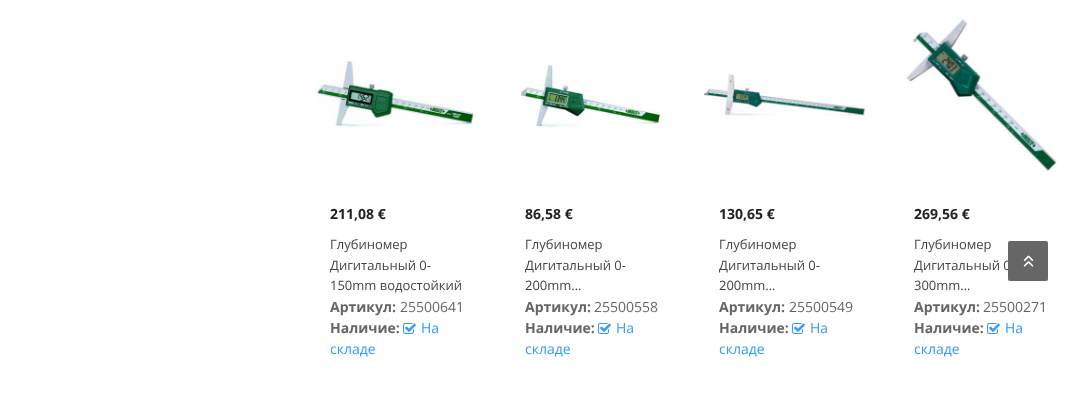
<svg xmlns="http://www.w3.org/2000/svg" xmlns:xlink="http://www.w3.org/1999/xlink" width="1078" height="402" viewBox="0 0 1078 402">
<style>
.cls-1{font:bold 14px Open Sans;fill:#222222}
.cls-2{font:13px Open Sans;fill:#444444}
.cls-3{font:bold 14px Open Sans;fill:#666666}
.cls-4{font:14px Open Sans;fill:#666666}
.cls-5{font:14px Open Sans;fill:#3399ff}
</style>
<defs>
<clipPath id="clip1"><rect x="525" y="234" width="134" height="62"/></clipPath>
<clipPath id="clip2"><rect x="914" y="234" width="134" height="62"/></clipPath>
</defs>
<rect width="100%" height="100%" fill="#ffffff"/>
<image xlink:href="image0.png" x="315" y="60" width="159" height="69"/>
<image xlink:href="image1.png" x="403" y="323" width="13" height="11"/>
<image xlink:href="image2.png" x="520" y="65" width="141" height="63"/>
<image xlink:href="image1.png" x="598" y="323" width="13" height="11"/>
<image xlink:href="image3.png" x="704" y="74" width="165" height="45"/>
<image xlink:href="image1.png" x="792" y="323" width="13" height="11"/>
<image xlink:href="image4.png" x="906" y="19" width="151" height="153"/>
<image xlink:href="image1.png" x="987" y="323" width="13" height="11"/>
<text class="cls-1" x="330" y="219">211,08 €</text>
<text class="cls-2"><tspan x="330" y="249">Глубиномер</tspan><tspan x="330" y="270">Дигитальный 0-</tspan><tspan x="330" y="290">150mm водостойкий</tspan></text>
<text class="cls-3" x="330" y="312">Артикул:</text>
<text class="cls-4" x="400" y="312">25500641</text>
<text class="cls-3" x="330" y="333">Наличие:</text>
<text class="cls-5" x="421" y="333">На</text>
<text class="cls-5" x="330" y="354">складе</text>
<text class="cls-1" x="525" y="219">86,58 €</text>
<text class="cls-2" x="525" y="249">Глубиномер</text>
<g clip-path="url(#clip1)">
<text class="cls-2" x="525" y="270">Дигитальный 0-</text>
</g>
<text class="cls-2" x="525" y="290">200mm…</text>
<text class="cls-3" x="525" y="312">Артикул:</text>
<text class="cls-4" x="594" y="312">25500558</text>
<text class="cls-3" x="525" y="333">Наличие:</text>
<text class="cls-5" x="616" y="333">На</text>
<text class="cls-5" x="525" y="354">складе</text>
<text class="cls-1" x="719" y="219">130,65 €</text>
<text class="cls-2"><tspan x="719" y="249">Глубиномер</tspan><tspan x="719" y="270">Дигитальный 0-</tspan><tspan x="719" y="290">200mm…</tspan></text>
<text class="cls-3" x="719" y="312">Артикул:</text>
<text class="cls-4" x="789" y="312">25500549</text>
<text class="cls-3" x="719" y="333">Наличие:</text>
<text class="cls-5" x="810" y="333">На</text>
<text class="cls-5" x="719" y="354">складе</text>
<text class="cls-1" x="914" y="219">269,56 €</text>
<text class="cls-2" x="914" y="249">Глубиномер</text>
<g clip-path="url(#clip2)">
<text class="cls-2" x="914" y="270">Дигитальный 0</text>
</g>
<text class="cls-2" x="914" y="290">300mm…</text>
<text class="cls-3" x="914" y="312">Артикул:</text>
<text class="cls-4" x="983" y="312">25500271</text>
<text class="cls-3" x="914" y="333">Наличие:</text>
<text class="cls-5" x="1005" y="333">На</text>
<text class="cls-5" x="914" y="354">складе</text>
<rect fill="#666666" x="1008" y="241" width="40" height="40" rx="2"/>
<image xlink:href="image5.png" x="1023" y="255" width="11" height="12"/>
</svg>
